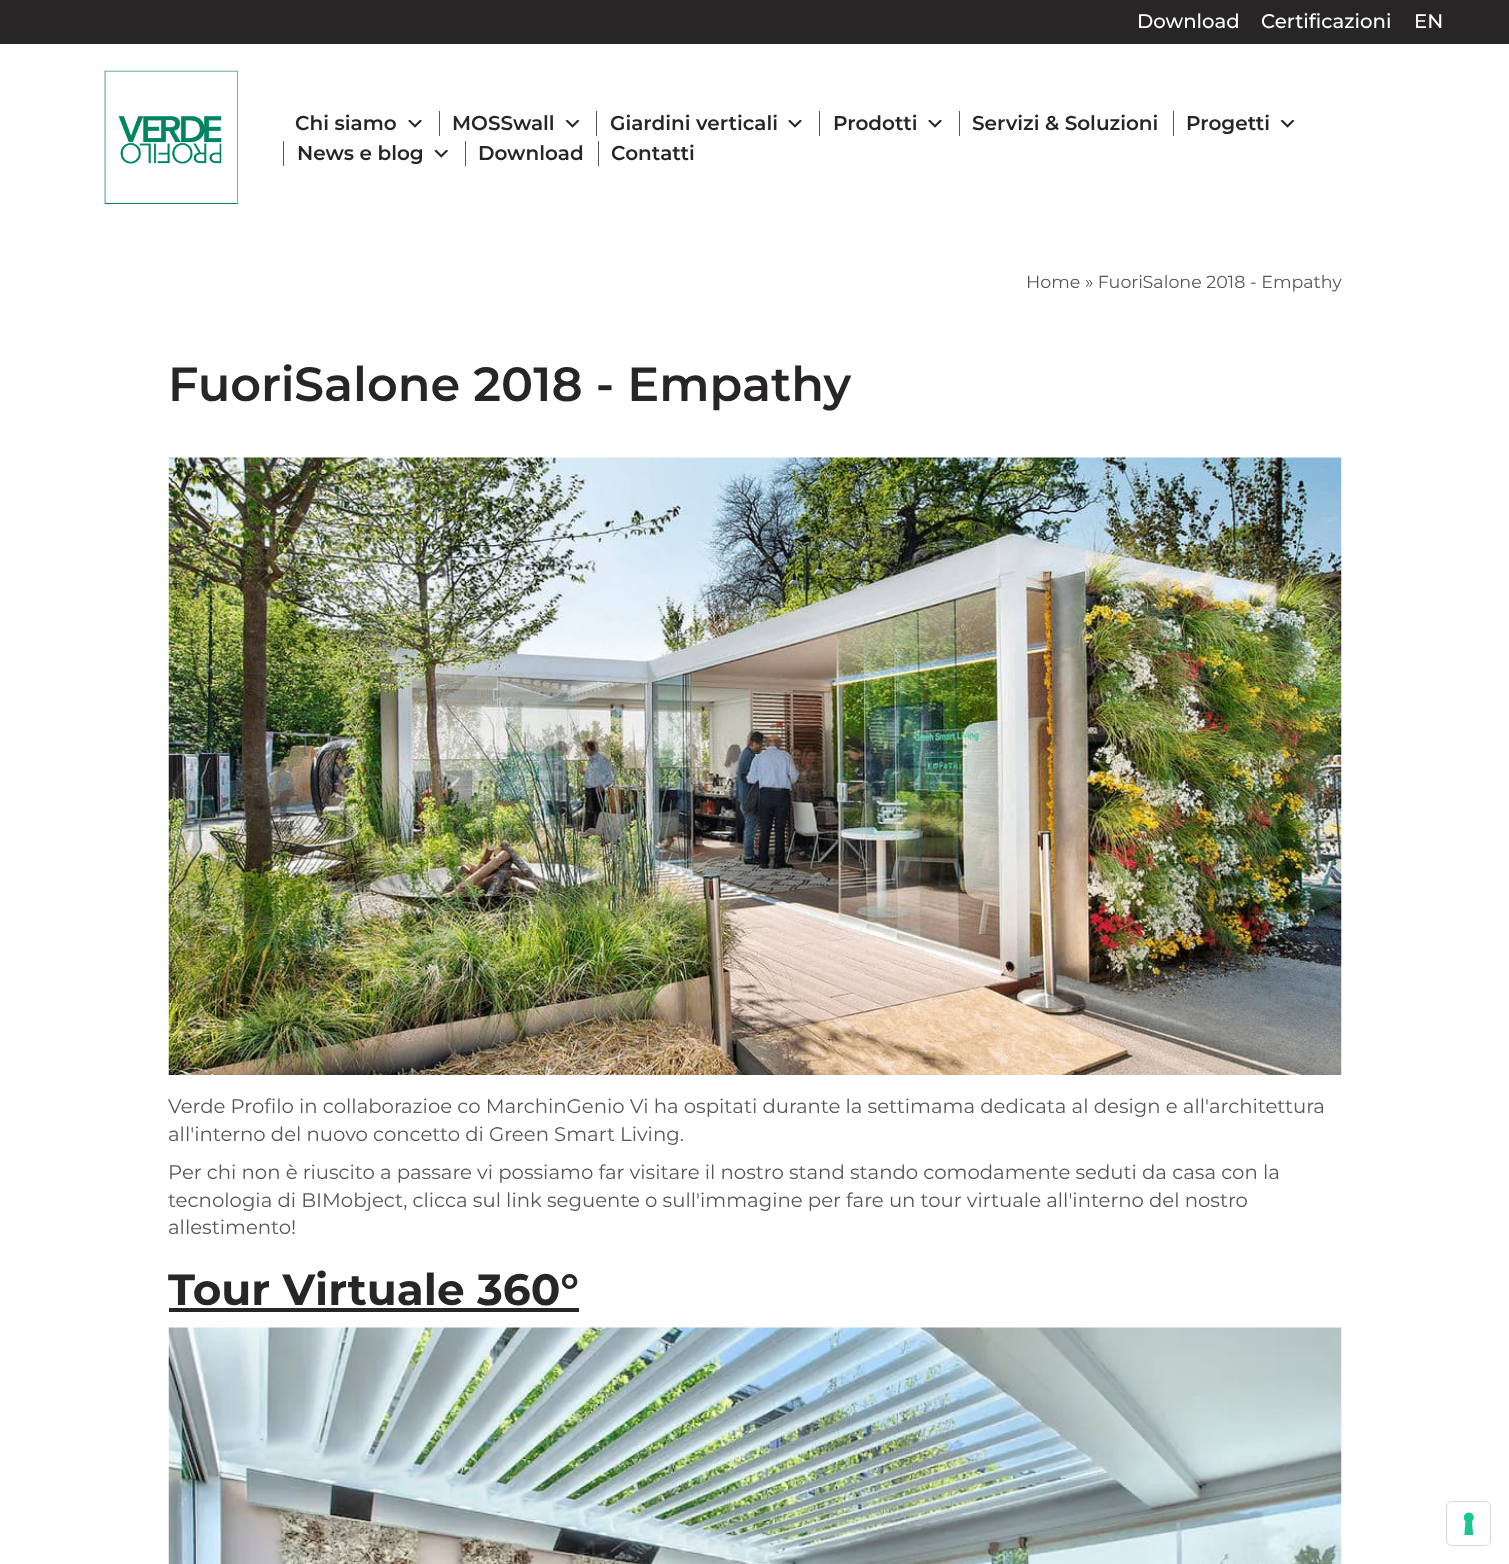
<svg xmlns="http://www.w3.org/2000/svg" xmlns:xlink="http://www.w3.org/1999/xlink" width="1509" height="1564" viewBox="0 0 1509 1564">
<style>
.cls-1{font:500 19.7px Montserrat;fill:#ffffff}
.cls-2{font:600 20px Montserrat;fill:#272526}
.cls-3{font:17.5px Montserrat;fill:#575756}
.cls-4{font:600 47.75px Montserrat;fill:#272526}
.cls-5{font:19.7px Montserrat;fill:#575756}
.cls-6{font:bold 43.75px Montserrat;fill:#272526}
</style>
<rect width="100%" height="100%" fill="#ffffff"/>
<rect fill="#272526" x="0" y="0" width="1509" height="44"/>
<image xlink:href="image0.png" x="104" y="70" width="134" height="134"/>
<image xlink:href="image1.png" x="408" y="119" width="14" height="9"/>
<rect fill="#575756" x="439" y="111" width="1" height="25"/>
<image xlink:href="image2.png" x="565" y="119" width="15" height="9"/>
<rect fill="#575756" x="596" y="111" width="1" height="25"/>
<image xlink:href="image1.png" x="788" y="119" width="14" height="9"/>
<rect fill="#575756" x="819" y="111" width="1" height="25"/>
<image xlink:href="image1.png" x="928" y="119" width="14" height="9"/>
<rect fill="#575756" x="959" y="111" width="1" height="25"/>
<rect fill="#575756" x="1173" y="111" width="1" height="25"/>
<image xlink:href="image2.png" x="1280" y="119" width="15" height="9"/>
<rect fill="#575756" x="283" y="141" width="1" height="25"/>
<image xlink:href="image3.png" x="434" y="149" width="15" height="9"/>
<rect fill="#575756" x="465" y="141" width="1" height="25"/>
<rect fill="#575756" x="598" y="141" width="1" height="25"/>
<image xlink:href="image4.png" x="168" y="457" width="1174" height="618"/>
<rect fill="#272526" x="169" y="1308" width="410" height="4"/>
<image xlink:href="image5.png" x="168" y="1327" width="1174" height="237"/>
<rect fill="none" stroke="#d9d9d9" x="1446.5" y="1501.5" width="44" height="44" rx="5.5"/>
<rect fill="#ffffff" x="1448" y="1503" width="42" height="42" rx="5"/>
<image xlink:href="image6.png" x="1463" y="1512" width="11" height="23"/>
<text class="cls-1" x="1137" y="28">Download</text>
<text class="cls-1" x="1261" y="28">Certificazioni</text>
<text class="cls-1" x="1414" y="28">EN</text>
<text class="cls-2" x="295" y="130">Chi siamo</text>
<text class="cls-2" x="452" y="130">MOSSwall</text>
<text class="cls-2" x="610" y="130">Giardini verticali</text>
<text class="cls-2" x="833" y="130">Prodotti</text>
<text class="cls-2" x="972" y="130">Servizi &amp; Soluzioni</text>
<text class="cls-2" x="1186" y="130">Progetti</text>
<text class="cls-2" x="297" y="160">News e blog</text>
<text class="cls-2" x="478" y="160">Download</text>
<text class="cls-2" x="611" y="160">Contatti</text>
<text class="cls-3" x="1026" y="288">Home » FuoriSalone 2018 - Empathy</text>
<text class="cls-4" x="168" y="401">FuoriSalone 2018 - Empathy</text>
<text class="cls-5"><tspan x="168" y="1113">Verde Profilo in collaborazioe co MarchinGenio Vi ha ospitati durante la settimama dedicata al design e all'architettura</tspan><tspan x="168" y="1141">all'interno del nuovo concetto di Green Smart Living.</tspan><tspan x="168" y="1179">Per chi non è riuscito a passare vi possiamo far visitare il nostro stand stando comodamente seduti da casa con la</tspan><tspan x="168" y="1207">tecnologia di BIMobject, clicca sul link seguente o sull'immagine per fare un tour virtuale all'interno del nostro</tspan><tspan x="168" y="1234">allestimento!</tspan></text>
<text class="cls-6" x="168" y="1305">Tour Virtuale 360°</text>
</svg>
